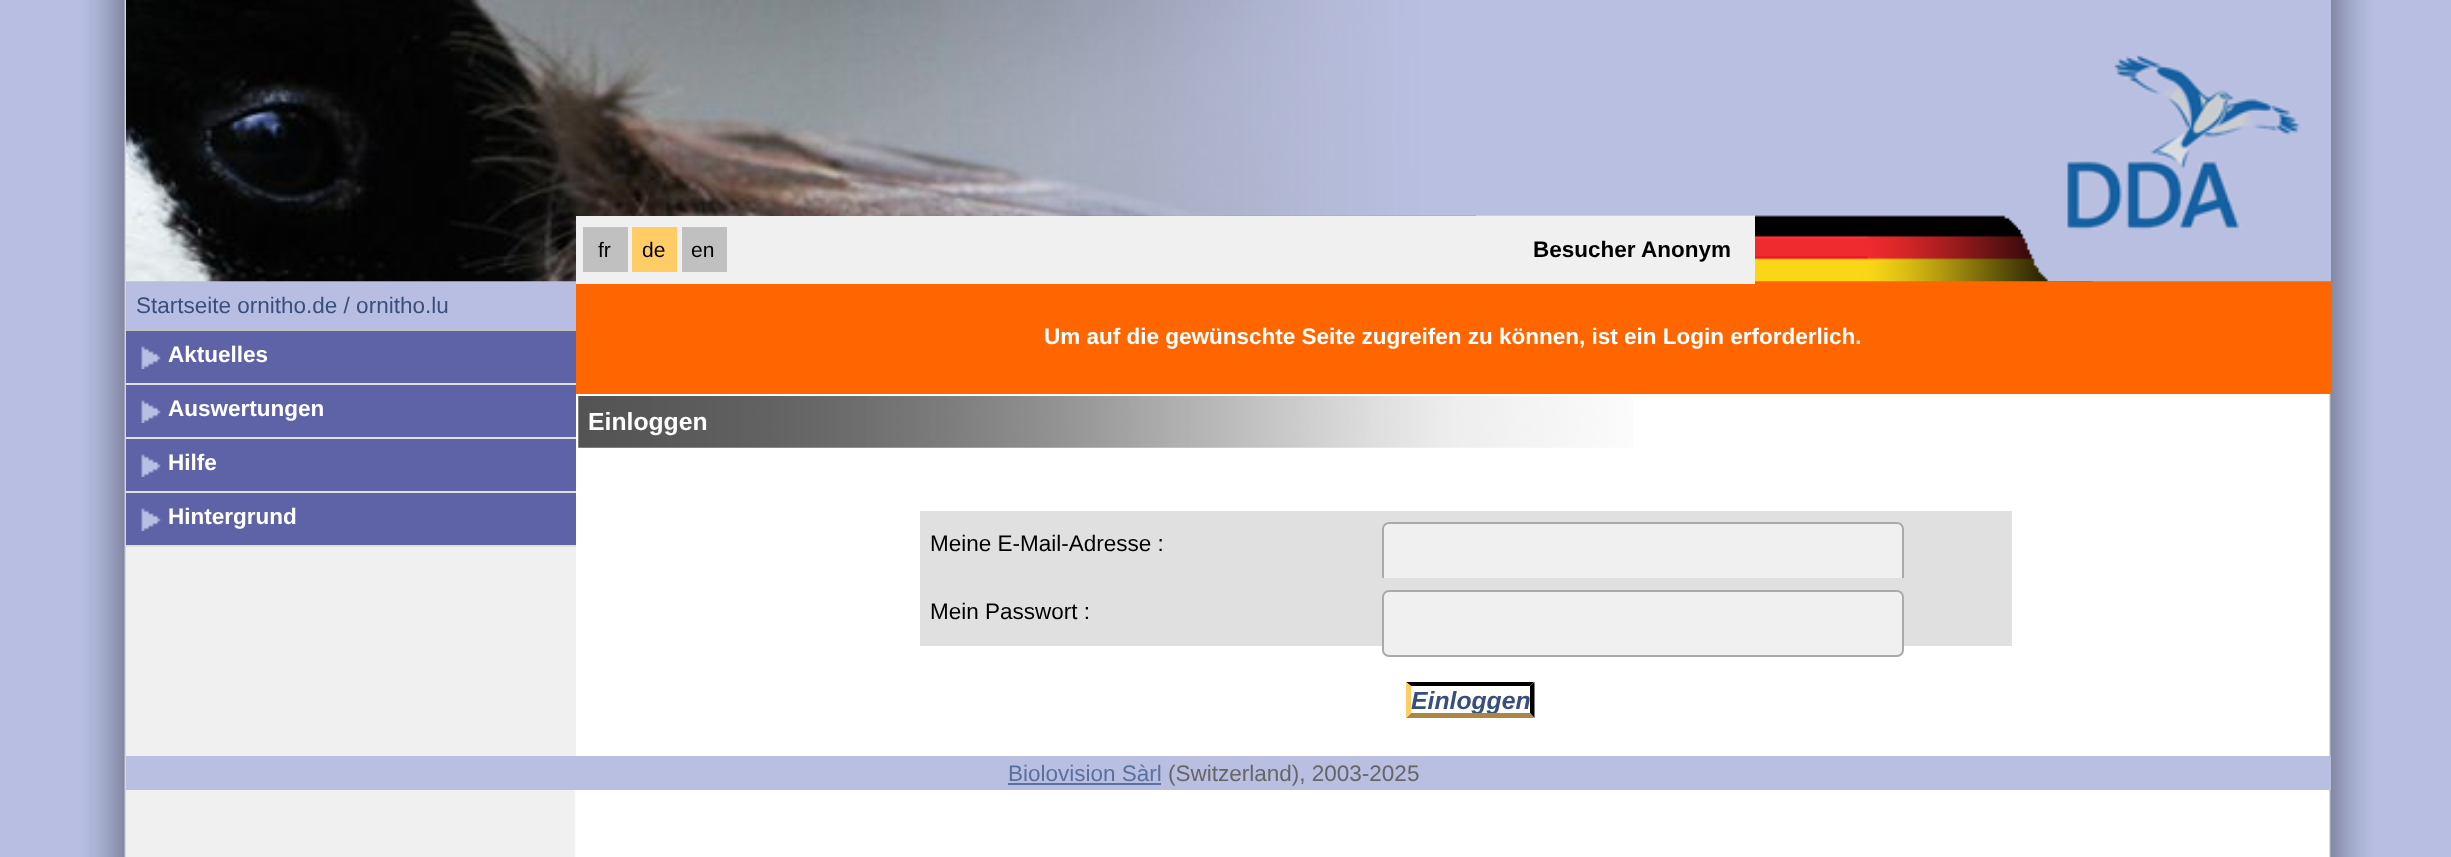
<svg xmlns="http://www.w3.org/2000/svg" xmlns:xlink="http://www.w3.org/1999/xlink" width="2451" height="857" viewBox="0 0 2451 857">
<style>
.cls-1{font:21px Liberation Sans;fill:#000000}
.cls-2{font:bold 22.5px Liberation Sans;fill:#000000}
.cls-3{font:22.5px Liberation Sans;fill:#384f7b}
.cls-4{font:bold 22.5px Liberation Sans;fill:#ffffff}
.cls-5{font:bold 24.75px Liberation Sans;fill:#ffffff}
.cls-6{font:22.5px Liberation Sans;fill:#000000}
.cls-7{font:italic bold 24.75px Liberation Sans;fill:#384f7b}
.cls-8{font:22.5px Liberation Sans;fill:#5a70a0}
.cls-9{font:22.5px Liberation Sans;fill:#666666}
</style>
<defs>
<clipPath id="clip1"><rect x="1411" y="686" width="119" height="27"/></clipPath>
</defs>
<rect width="100%" height="100%" fill="#b8bee1"/>
<image xlink:href="image0.png" x="83" y="0" width="2289" height="857"/>
<rect fill="#b8bee1" x="126" y="281" width="450" height="48"/>
<rect fill="#ff6600" x="576" y="281" width="1755" height="113"/>
<image xlink:href="image1.png" x="126" y="0" width="1350" height="282"/>
<image xlink:href="image4.png" x="1755" y="215" width="338" height="67"/>
<image xlink:href="image2.png" x="831" y="0" width="1500" height="282"/>
<image xlink:href="image3.png" x="2018" y="54" width="282" height="176"/>
<rect fill="#f0f0f0" x="576" y="216" width="1179" height="68"/>
<rect fill="#c0c0c0" x="583" y="227" width="45" height="45"/>
<rect fill="#ffcc66" x="632" y="227" width="45" height="45"/>
<rect fill="#c0c0c0" x="682" y="227" width="45" height="45"/>
<rect fill="#f0f0f0" x="574" y="547" width="2" height="209"/>
<rect fill="#c0c0c0" x="126" y="329" width="450" height="2"/>
<rect fill="#5e63a7" x="126" y="331" width="450" height="52"/>
<rect fill="#e0e0e0" x="126" y="383" width="450" height="2"/>
<image xlink:href="image5.png" x="141" y="346" width="20" height="23"/>
<rect fill="#5e63a7" x="126" y="385" width="450" height="52"/>
<rect fill="#e0e0e0" x="126" y="437" width="450" height="2"/>
<image xlink:href="image5.png" x="141" y="400" width="20" height="23"/>
<rect fill="#5e63a7" x="126" y="439" width="450" height="52"/>
<rect fill="#e0e0e0" x="126" y="491" width="450" height="2"/>
<image xlink:href="image5.png" x="141" y="454" width="20" height="23"/>
<rect fill="#5e63a7" x="126" y="493" width="450" height="52"/>
<rect fill="#e0e0e0" x="126" y="545" width="450" height="2"/>
<image xlink:href="image5.png" x="141" y="508" width="20" height="23"/>
<image xlink:href="image6.png" x="578" y="396" width="1055" height="52"/>
<rect fill="#e0e0e0" x="920" y="511" width="1092" height="67"/>
<rect fill="#f0f0f0" stroke="#aaaaaa" stroke-width="2" x="1383" y="523" width="520" height="66" rx="6"/>
<rect fill="#e0e0e0" x="920" y="578" width="1092" height="68"/>
<rect fill="#f0f0f0" stroke="#aaaaaa" stroke-width="2" x="1383" y="591" width="520" height="65" rx="6"/>
<path fill="#000000" d="M1406 682H1534L1530 686H1411Z"/>
<path fill="#000000" d="M1534.5 682V718L1530 713V686Z"/>
<path fill="#aa8844" d="M1534 718H1406L1411 713H1530Z"/>
<path fill="#ffcc66" d="M1406 718V682L1411 686V713Z"/>
<rect fill="#b9bfe1" x="126" y="756" width="2205" height="34"/>
<rect fill="#5a70a0" x="1008" y="783" width="153" height="2"/>
<text class="cls-1" x="598" y="257">fr</text>
<text class="cls-1" x="642" y="257">de</text>
<text class="cls-1" x="691" y="257">en</text>
<text class="cls-2" x="1533" y="257">Besucher Anonym</text>
<text class="cls-3" x="136" y="313">Startseite ornitho.de / ornitho.lu</text>
<text class="cls-4" x="168" y="362">Aktuelles</text>
<text class="cls-4" x="168" y="416">Auswertungen</text>
<text class="cls-4" x="168" y="470">Hilfe</text>
<text class="cls-4" x="168" y="524">Hintergrund</text>
<text class="cls-4" x="1044" y="344">Um auf die gewünschte Seite zugreifen zu können, ist ein Login erforderlich.</text>
<text class="cls-5" x="588" y="430">Einloggen</text>
<text class="cls-6" x="930" y="551">Meine E-Mail-Adresse :</text>
<text class="cls-6" x="930" y="619">Mein Passwort :</text>
<g clip-path="url(#clip1)">
<text class="cls-7" x="1411" y="709">Einloggen</text>
</g>
<text class="cls-8" x="1008" y="781">Biolovision Sàrl</text>
<text class="cls-9" x="1168" y="781">(Switzerland), 2003-2025</text>
</svg>
